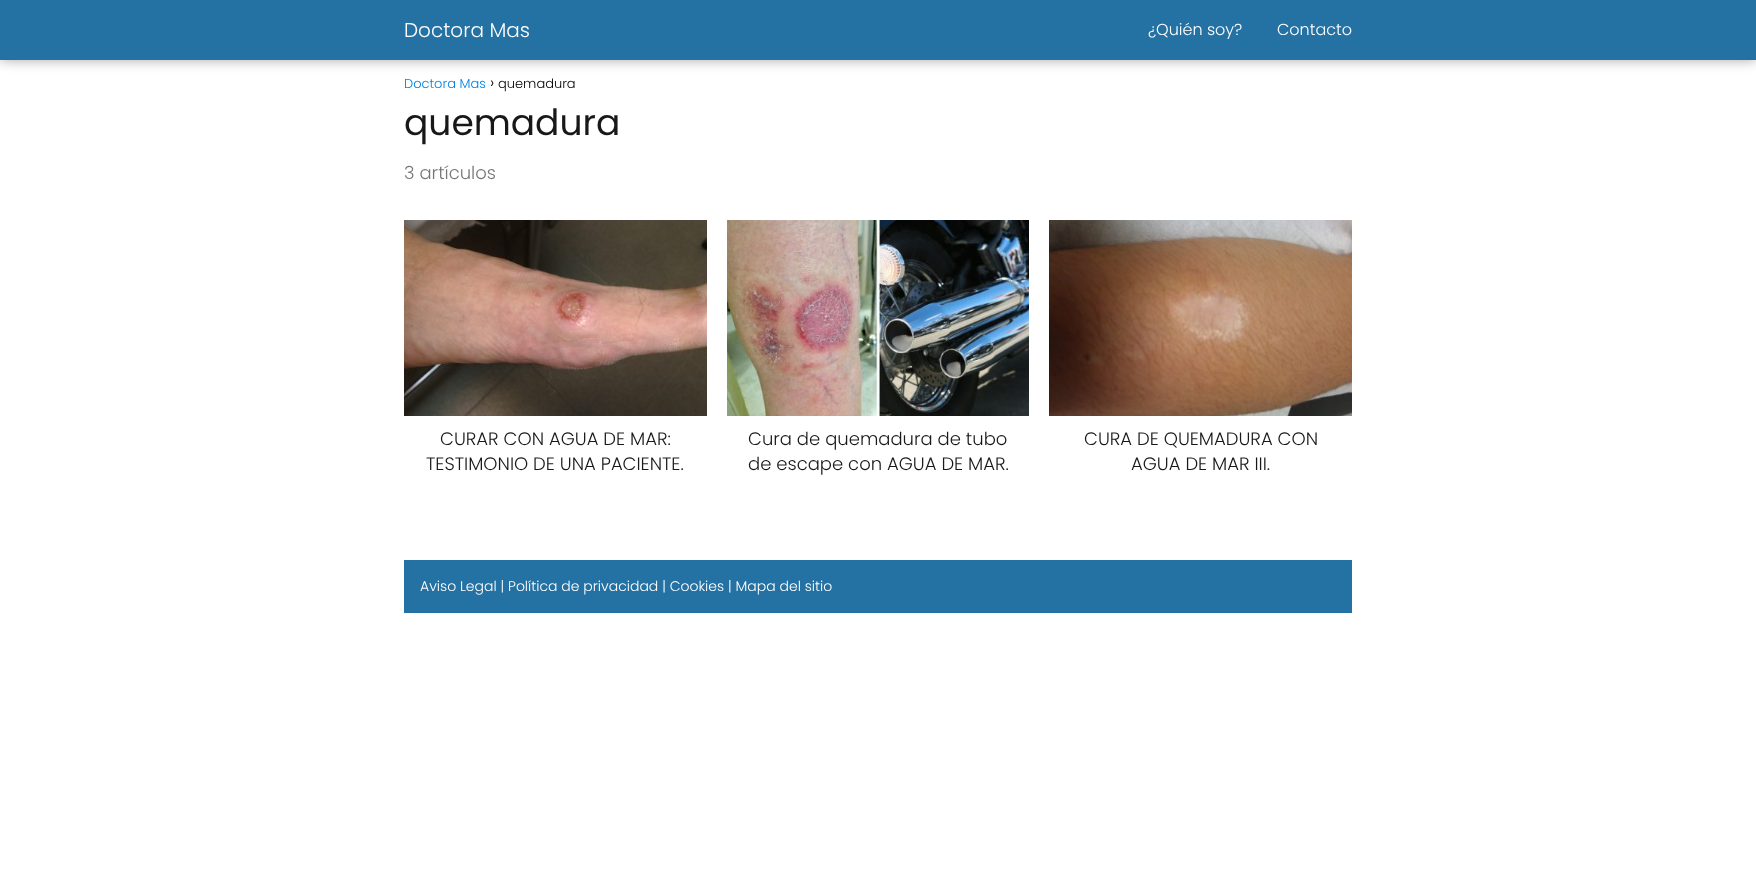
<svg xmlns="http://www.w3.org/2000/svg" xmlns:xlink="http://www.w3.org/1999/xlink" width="1756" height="895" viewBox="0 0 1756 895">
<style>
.cls-1{font:300 20px Poppins;fill:#ffffff}
.cls-2{font:300 16px Poppins;fill:#ffffff}
.cls-3{font:300 13px Poppins;fill:#0183e4}
.cls-4{font:300 16px Poppins;fill:#000000}
.cls-5{font:300 13px Poppins;fill:#000000}
.cls-6{font:36px Poppins;fill:#181818}
.cls-7{font:300 18px Poppins;fill:#767676}
.cls-8{font:300 18px Poppins;fill:#181818}
.cls-9{font:300 14px Poppins;fill:#ffffff}
</style>
<rect width="100%" height="100%" fill="#ffffff"/>
<rect fill="#000000" fill-opacity="0.3" filter="blur(6px)" x="0" y="1" width="1756" height="60"/>
<rect fill="#2471a3" x="0" y="0" width="1756" height="60"/>
<image xlink:href="image0.png" x="404" y="220" width="303" height="196"/>
<image xlink:href="image1.png" x="727" y="220" width="302" height="196"/>
<image xlink:href="image2.png" x="1049" y="220" width="303" height="196"/>
<rect fill="#2471a3" x="404" y="560" width="948" height="53"/>
<text class="cls-1" x="404" y="37">Doctora Mas</text>
<text class="cls-2" x="1148" y="35">¿Quién soy?</text>
<text class="cls-2" x="1277" y="35">Contacto</text>
<text class="cls-3" x="404" y="88">Doctora Mas</text>
<text class="cls-4" x="490" y="88">›</text>
<text class="cls-5" x="498" y="88">quemadura</text>
<text class="cls-6" x="404" y="135">quemadura</text>
<text class="cls-7" x="404" y="179">3 artículos</text>
<text class="cls-8" x="440" y="445">CURAR CON AGUA DE MAR:</text>
<text class="cls-8" x="426" y="470">TESTIMONIO DE UNA PACIENTE.</text>
<text class="cls-8"><tspan x="748" y="445">Cura de quemadura de tubo</tspan><tspan x="748" y="470">de escape con AGUA DE MAR.</tspan></text>
<text class="cls-8" x="1084" y="445">CURA DE QUEMADURA CON</text>
<text class="cls-8" x="1131" y="470">AGUA DE MAR III.</text>
<text class="cls-9" x="420" y="591">Aviso Legal | Política de privacidad | Cookies | Mapa del sitio</text>
</svg>
